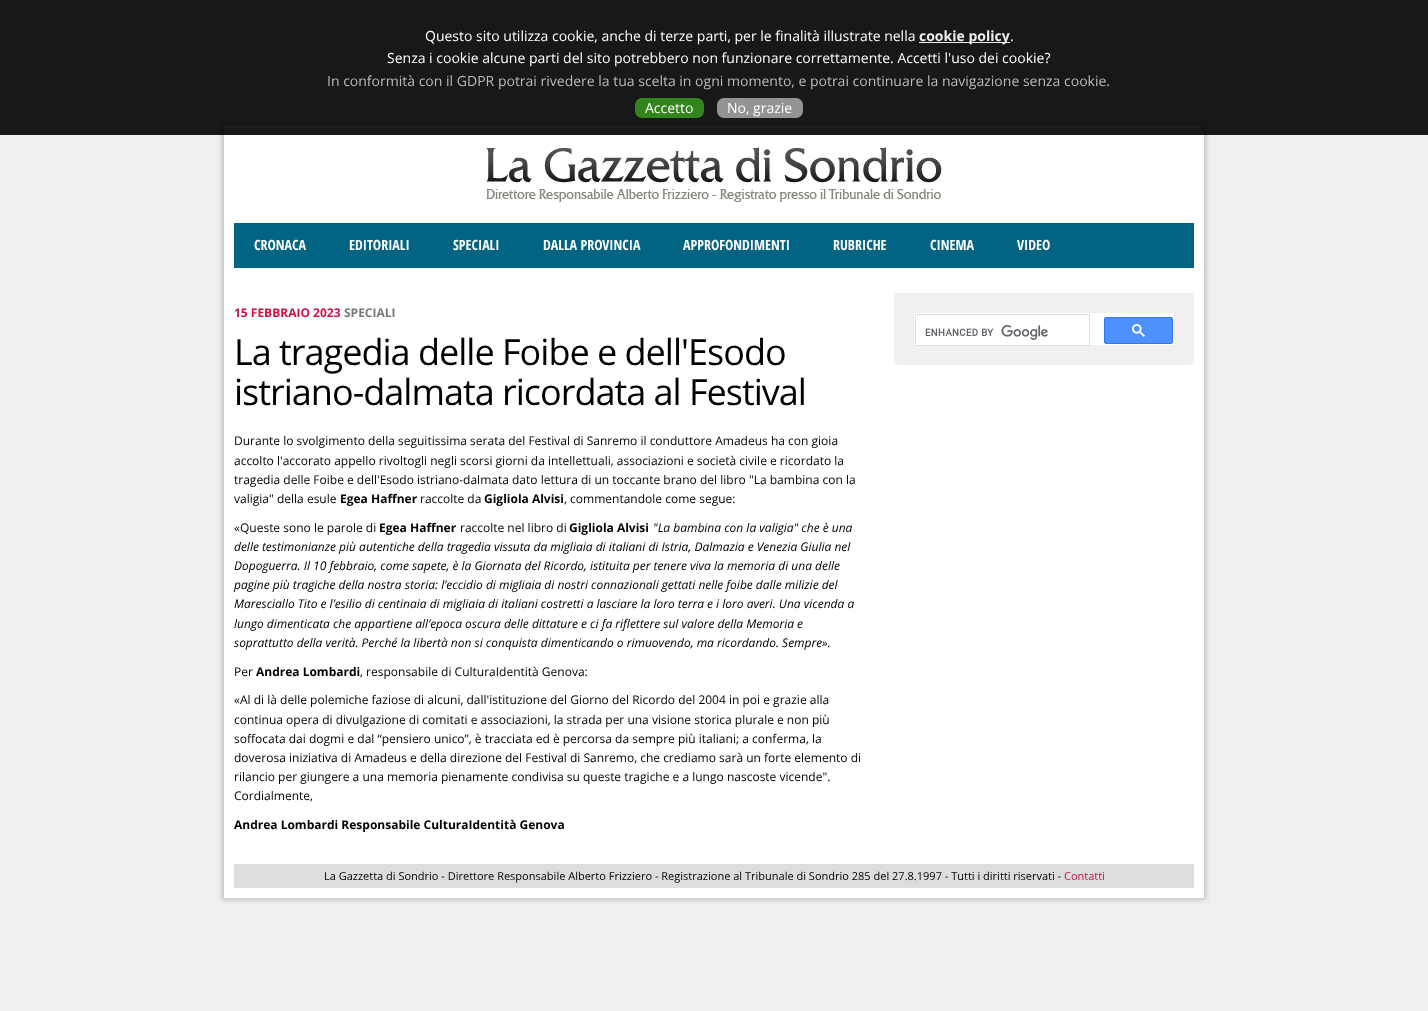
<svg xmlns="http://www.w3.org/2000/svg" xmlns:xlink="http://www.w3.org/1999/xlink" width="1428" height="1011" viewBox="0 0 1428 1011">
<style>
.cls-1{font:14px Open Sans;fill:#ffffff}
.cls-2{font:bold 14px Open Sans;fill:#eeeeee}
.cls-3{font:14px Open Sans;fill:#bababa}
.cls-4{font:bold 14px Open Sans Condensed;fill:#ffffff}
.cls-5{font:bold 12px Open Sans;fill:#cc1144}
.cls-6{font:bold 12px Open Sans;fill:#777777}
.cls-7{font:36px Open Sans;letter-spacing:-1px;fill:#000000}
.cls-8{font:12px Open Sans;fill:#000000}
.cls-9{font:bold 12px Open Sans;fill:#000000}
.cls-10{font:italic 12px Open Sans;fill:#000000}
.cls-11{font:11px Open Sans;fill:#000000}
.cls-12{font:11px Open Sans;fill:#cc1144}
</style>
<rect width="100%" height="100%" fill="#f0f0f0"/>
<rect fill="#000000" fill-opacity="0.2" filter="blur(2.5px)" x="222" y="123" width="984" height="777"/>
<rect fill="#ffffff" x="224" y="125" width="980" height="773"/>
<rect fill="#000000" fill-opacity="0.9" x="0" y="0" width="1428" height="135"/>
<rect fill="#eeeeee" x="919" y="42" width="91" height="1"/>
<rect fill="#32851b" x="635" y="98" width="69" height="20" rx="7"/>
<rect fill="#939393" x="717" y="98" width="86" height="20" rx="7"/>
<image xlink:href="image0.png" x="486" y="147" width="456" height="55"/>
<rect fill="#016483" x="234" y="223" width="960" height="45"/>
<path fill="#f0f0f0" d="M894 293H1194V359C1194 362.5 1191.5 365 1188 365H900C896.5 365 894 362.5 894 359Z"/>
<rect fill="#ffffff" x="914" y="313" width="260" height="32"/>
<rect fill="none" stroke="#dfe1e5" x="915.5" y="314.5" width="174" height="31"/>
<image xlink:href="image1.png" x="925" y="325" width="123" height="15"/>
<rect fill="#4d90fe" stroke="#3079ed" x="1104.5" y="317.5" width="68" height="26" rx="1.5"/>
<image xlink:href="image2.png" x="1132" y="324" width="13" height="13"/>
<rect fill="#dddddd" x="234" y="864" width="960" height="24"/>
<text class="cls-1" x="425" y="41">Questo sito utilizza cookie, anche di terze parti, per le finalità illustrate nella</text>
<text class="cls-2" x="919" y="41">cookie policy</text>
<text class="cls-1" x="1010" y="41">.</text>
<text class="cls-1" x="387" y="63">Senza i cookie alcune parti del sito potrebbero non funzionare correttamente. Accetti l'uso dei cookie?</text>
<text class="cls-3" x="327" y="86">In conformità con il GDPR potrai rivedere la tua scelta in ogni momento, e potrai continuare la navigazione senza cookie.</text>
<text class="cls-1" x="645" y="113">Accetto</text>
<text class="cls-1" x="727" y="113">No, grazie</text>
<text class="cls-4" x="254" y="250">CRONACA</text>
<text class="cls-4" x="349" y="250">EDITORIALI</text>
<text class="cls-4" x="453" y="250">SPECIALI</text>
<text class="cls-4" x="543" y="250">DALLA PROVINCIA</text>
<text class="cls-4" x="683" y="250">APPROFONDIMENTI</text>
<text class="cls-4" x="833" y="250">RUBRICHE</text>
<text class="cls-4" x="930" y="250">CINEMA</text>
<text class="cls-4" x="1017" y="250">VIDEO</text>
<text class="cls-5" x="234" y="317">15 FEBBRAIO 2023</text>
<text class="cls-6" x="344" y="317">SPECIALI</text>
<text class="cls-7"><tspan x="234" y="365">La tragedia delle Foibe e dell'Esodo</tspan><tspan x="234" y="405">istriano-dalmata ricordata al Festival</tspan></text>
<text class="cls-8"><tspan x="234" y="445">Durante lo svolgimento della seguitissima serata del Festival di Sanremo il conduttore Amadeus ha con gioia</tspan><tspan x="234" y="465">accolto l'accorato appello rivoltogli negli scorsi giorni da intellettuali, associazioni e società civile e ricordato la</tspan><tspan x="234" y="484">tragedia delle Foibe e dell'Esodo istriano-dalmata dato lettura di un toccante brano del libro "La bambina con la</tspan><tspan x="234" y="503">valigia" della esule</tspan></text>
<text class="cls-9" x="340" y="503">Egea Haffner</text>
<text class="cls-8" x="420" y="503">raccolte da</text>
<text class="cls-9" x="484" y="503">Gigliola Alvisi</text>
<text class="cls-8" x="564" y="503">, commentandole come segue:</text>
<text class="cls-8" x="234" y="532">«Queste sono le parole di</text>
<text class="cls-9" x="379" y="532">Egea Haffner</text>
<text class="cls-8" x="460" y="532">raccolte nel libro di</text>
<text class="cls-9" x="569" y="532">Gigliola Alvisi</text>
<text class="cls-10" x="653" y="532">"La bambina con la valigia" che è una</text>
<text class="cls-10"><tspan x="234" y="551">delle testimonianze più autentiche della tragedia vissuta da migliaia di italiani di Istria, Dalmazia e Venezia Giulia nel</tspan><tspan x="234" y="570">Dopoguerra. Il 10 febbraio, come sapete, è la Giornata del Ricordo, istituita per tenere viva la memoria di una delle</tspan><tspan x="234" y="589">pagine più tragiche della nostra storia: l’eccidio di migliaia di nostri connazionali gettati nelle foibe dalle milizie del</tspan><tspan x="234" y="608">Maresciallo Tito e l’esilio di centinaia di migliaia di italiani costretti a lasciare la loro terra e i loro averi. Una vicenda a</tspan><tspan x="234" y="628">lungo dimenticata che appartiene all’epoca oscura delle dittature e ci fa riflettere sul valore della Memoria e</tspan><tspan x="234" y="647">soprattutto della verità. Perché la libertà non si conquista dimenticando o rimuovendo, ma ricordando. Sempre».</tspan></text>
<text class="cls-8" x="234" y="676">Per</text>
<text class="cls-9" x="256" y="676">Andrea Lombardi</text>
<text class="cls-8" x="360" y="676">, responsabile di CulturaIdentità Genova:</text>
<text class="cls-8"><tspan x="234" y="704">«Al di là delle polemiche faziose di alcuni, dall'istituzione del Giorno del Ricordo del 2004 in poi e grazie alla</tspan><tspan x="234" y="724">continua opera di divulgazione di comitati e associazioni, la strada per una visione storica plurale e non più</tspan><tspan x="234" y="743">soffocata dai dogmi e dal “pensiero unico”, è tracciata ed è percorsa da sempre più italiani; a conferma, la</tspan><tspan x="234" y="762">doverosa iniziativa di Amadeus e della direzione del Festival di Sanremo, che crediamo sarà un forte elemento di</tspan><tspan x="234" y="781">rilancio per giungere a una memoria pienamente condivisa su queste tragiche e a lungo nascoste vicende".</tspan><tspan x="234" y="800">Cordialmente,</tspan></text>
<text class="cls-9" x="234" y="829">Andrea Lombardi Responsabile CulturaIdentità Genova</text>
<text class="cls-11" x="324" y="880">La Gazzetta di Sondrio - Direttore Responsabile Alberto Frizziero - Registrazione al Tribunale di Sondrio 285 del 27.8.1997 - Tutti i diritti riservati -</text>
<text class="cls-12" x="1064" y="880">Contatti</text>
</svg>
